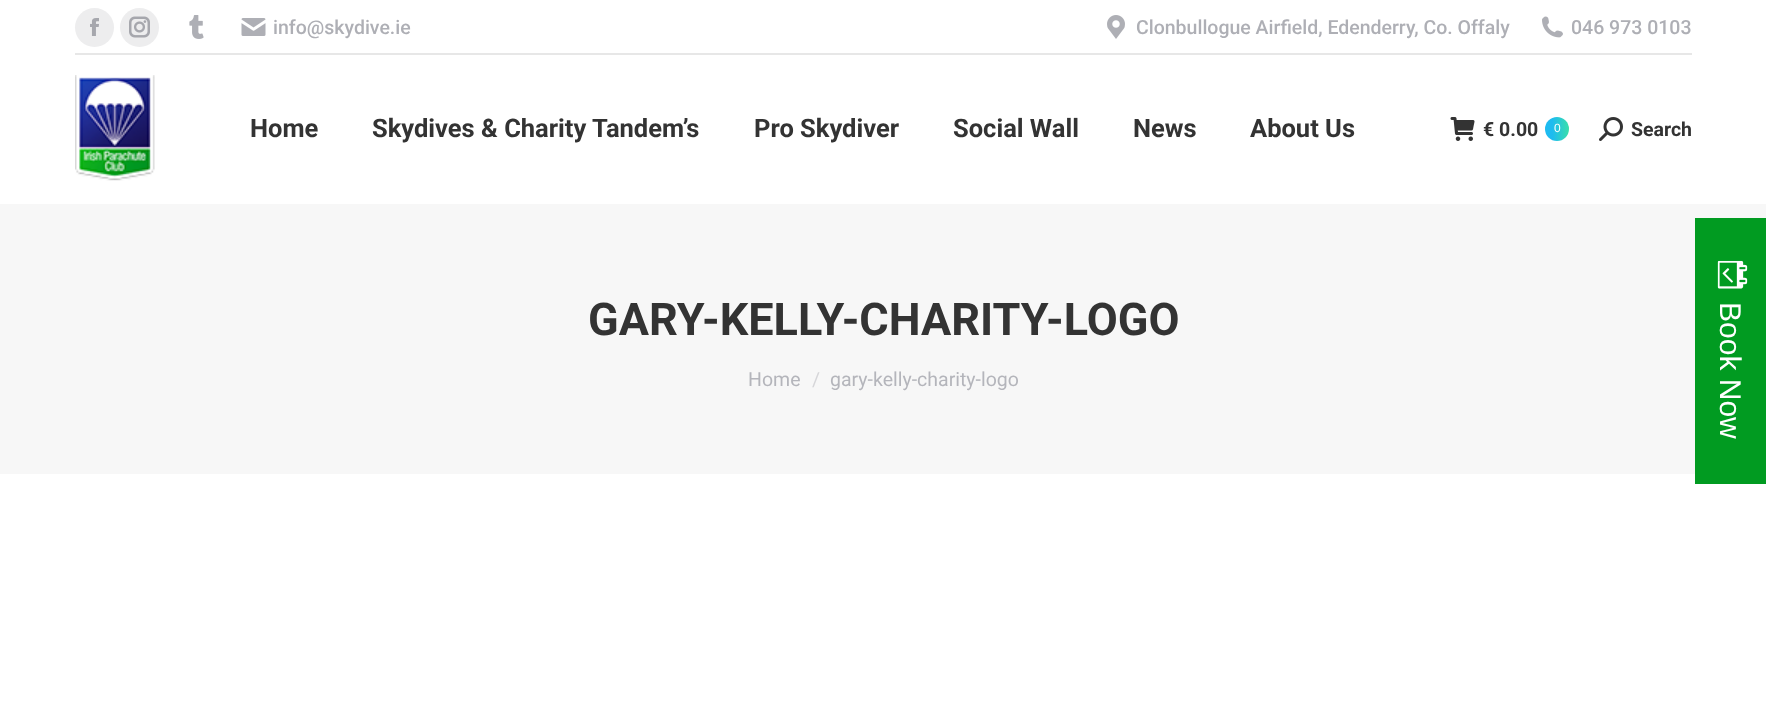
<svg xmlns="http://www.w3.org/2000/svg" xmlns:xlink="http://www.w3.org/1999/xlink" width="1766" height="701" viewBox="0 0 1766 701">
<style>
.cls-1{font:500 19.5px Roboto;fill:#aeafb5}
.cls-2{font:bold 25.5px Roboto;fill:#333333}
.cls-3{font:bold 19.5px Roboto;fill:#333333}
.cls-4{font:12px Liberation Sans;fill:#ffffff}
.cls-5{font:bold 45px Roboto;fill:#333333}
.cls-6{font:19.5px Roboto;fill:#b4b5bb}
.cls-7{font:19.5px Roboto;fill:#d6d6d9}
.cls-8{font:30px Liberation Sans;fill:#ffffff}
</style>
<defs>
<linearGradient id="g1" gradientUnits="userSpaceOnUse" x1="1545" y1="129" x2="1569" y2="129"><stop offset="0.3" stop-color="#1ebbf0"/><stop offset="1" stop-color="#39dfaa"/></linearGradient>
</defs>
<rect width="100%" height="100%" fill="#ffffff"/>
<circle fill="#ededee" cx="94.5" cy="27.5" r="19.5"/>
<image xlink:href="image0.png" x="90" y="18" width="9" height="18"/>
<circle fill="#ededee" cx="139.5" cy="27.5" r="19.5"/>
<image xlink:href="image1.png" x="129" y="16" width="21" height="22"/>
<image xlink:href="image2.png" x="189" y="15" width="15" height="24"/>
<image xlink:href="image3.png" x="241" y="18" width="25" height="18"/>
<image xlink:href="image4.png" x="1107" y="15" width="18" height="24"/>
<image xlink:href="image5.png" x="1542" y="16" width="21" height="22"/>
<rect fill="#e7e7e7" x="75" y="53" width="1617" height="2"/>
<image xlink:href="image6.png" x="75" y="75" width="80" height="106"/>
<image xlink:href="image7.png" x="1450" y="117" width="25" height="24"/>
<circle fill="url(#g1)" cx="1557" cy="129" r="12"/>
<image xlink:href="image8.png" x="1599" y="117" width="24" height="24"/>
<rect fill="#f7f7f7" x="0" y="204" width="1766" height="270"/>
<rect fill="#019b21" x="1695" y="218" width="71" height="266"/>
<image xlink:href="image9.png" x="1717" y="260" width="31" height="29"/>
<text class="cls-1" x="273" y="34">info@skydive.ie</text>
<text class="cls-1" x="1136" y="34">Clonbullogue Airfield, Edenderry, Co. Offaly</text>
<text class="cls-1" x="1571" y="34">046 973 0103</text>
<text class="cls-2" x="250" y="137">Home</text>
<text class="cls-2" x="372" y="137">Skydives &amp; Charity Tandem’s</text>
<text class="cls-2" x="754" y="137">Pro Skydiver</text>
<text class="cls-2" x="953" y="137">Social Wall</text>
<text class="cls-2" x="1133" y="137">News</text>
<text class="cls-2" x="1250" y="137">About Us</text>
<text class="cls-3" x="1483" y="136">€ 0.00</text>
<text class="cls-4" x="1554" y="132">0</text>
<text class="cls-3" x="1631" y="136">Search</text>
<text class="cls-5" x="588" y="335">GARY-KELLY-CHARITY-LOGO</text>
<text class="cls-6" x="748" y="386">Home</text>
<text class="cls-7" x="812" y="386">/</text>
<text class="cls-6" x="830" y="386">gary-kelly-charity-logo</text>
<text class="cls-8" x="1720" y="302" transform="rotate(90 1720 302)">Book Now</text>
</svg>
